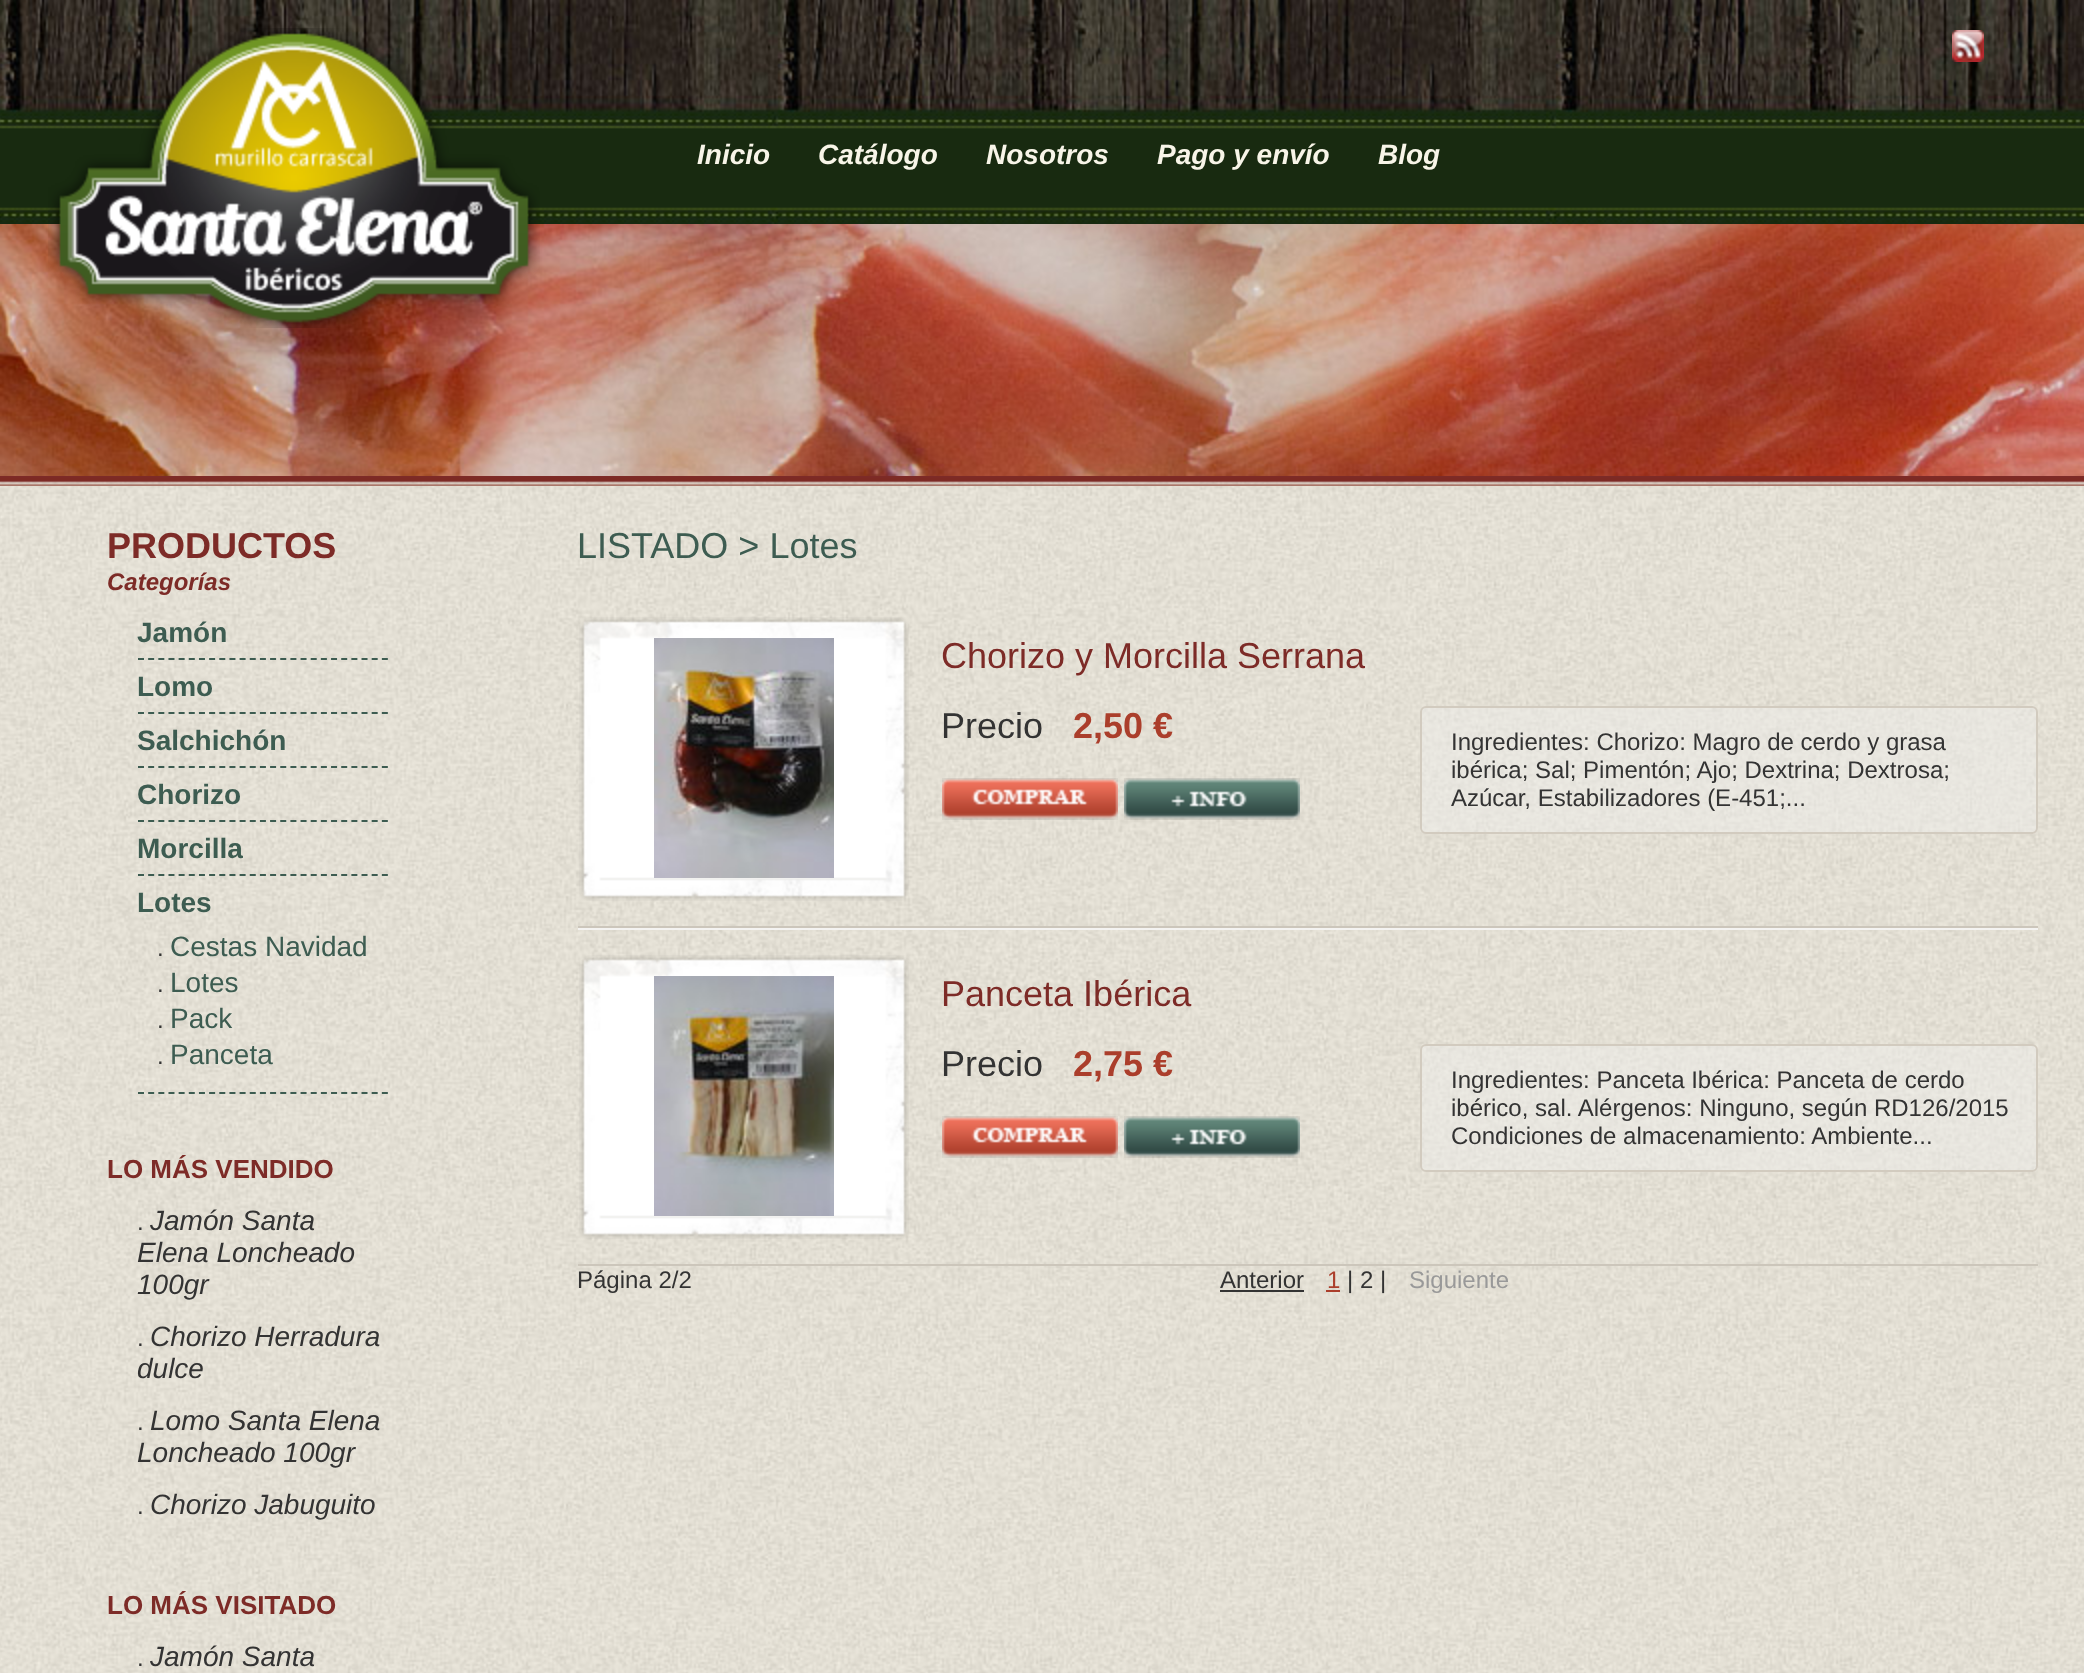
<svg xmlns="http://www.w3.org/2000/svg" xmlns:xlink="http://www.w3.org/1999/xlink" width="2084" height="1673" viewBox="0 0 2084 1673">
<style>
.cls-1{font:italic bold 28px Liberation Sans;fill:#f8f5e8}
.cls-2{font:bold 36px Liberation Sans;fill:#7d2b27}
.cls-3{font:italic bold 24px Liberation Sans;fill:#7d2b27}
.cls-4{font:bold 28px Liberation Sans;fill:#3d5c51}
.cls-5{font:24px Liberation Sans;fill:#333333}
.cls-6{font:28px Liberation Sans;fill:#3d5c51}
.cls-7{font:bold 26px Liberation Sans;fill:#7d2b27}
.cls-8{font:italic 28px Liberation Sans;fill:#333333}
.cls-9{font:36px Liberation Sans;fill:#3d5c51}
.cls-10{font:36px Liberation Sans;fill:#7d2b27}
.cls-11{font:36px Liberation Sans;fill:#333333}
.cls-12{font:bold 36px Liberation Sans;fill:#ab3e2b}
.cls-13{font:24px Liberation Sans;fill:#ab3e2b}
.cls-14{font:24px Liberation Sans;fill:#999999}
</style>
<rect width="100%" height="100%" fill="#ffffff"/>
<image xlink:href="image0.png" x="0" y="481" width="2084" height="1192"/>
<image xlink:href="image1.png" x="0" y="0" width="2084" height="224"/>
<image xlink:href="image5.png" x="0" y="224" width="2084" height="252"/>
<image xlink:href="image2.png" x="48" y="28" width="492" height="300"/>
<image xlink:href="image3.png" x="1952" y="30" width="32" height="32"/>
<image xlink:href="image4.png" x="0" y="476" width="2084" height="10"/>
<path fill="none" stroke="#3d5c51" stroke-width="2" stroke-dasharray="6 4.16" d="M138 659H388"/>
<path fill="none" stroke="#3d5c51" stroke-width="2" stroke-dasharray="6 4.16" d="M138 713H388"/>
<path fill="none" stroke="#3d5c51" stroke-width="2" stroke-dasharray="6 4.16" d="M138 767H388"/>
<path fill="none" stroke="#3d5c51" stroke-width="2" stroke-dasharray="6 4.16" d="M138 821H388"/>
<path fill="none" stroke="#3d5c51" stroke-width="2" stroke-dasharray="6 4.16" d="M138 875H388"/>
<path fill="none" stroke="#3d5c51" stroke-width="2" stroke-dasharray="6 4.16" d="M138 1093H388"/>
<rect fill="#ccc6bb" x="578" y="926" width="1460" height="2"/>
<image xlink:href="image6.png" x="579" y="617" width="330" height="284"/>
<image xlink:href="image7.png" x="654" y="638" width="180" height="240"/>
<image xlink:href="image8.png" x="942" y="778" width="176" height="42"/>
<image xlink:href="image9.png" x="1124" y="778" width="176" height="42"/>
<image xlink:href="image10.png" x="1420" y="706" width="618" height="128"/>
<rect fill="none" stroke="#d2cbbf" stroke-width="2" x="1421" y="707" width="616" height="126" rx="5"/>
<rect fill="#f4f3f1" x="578" y="928" width="1460" height="2"/>
<rect fill="#ccc6bb" x="578" y="1264" width="1460" height="2"/>
<image xlink:href="image11.png" x="579" y="955" width="330" height="284"/>
<image xlink:href="image12.png" x="654" y="976" width="180" height="240"/>
<image xlink:href="image13.png" x="942" y="1116" width="176" height="42"/>
<image xlink:href="image14.png" x="1124" y="1116" width="176" height="42"/>
<image xlink:href="image15.png" x="1420" y="1044" width="618" height="128"/>
<rect fill="none" stroke="#d2cbbf" stroke-width="2" x="1421" y="1045" width="616" height="126" rx="5"/>
<rect fill="#333333" x="1220" y="1290" width="84" height="2"/>
<rect fill="#ab3e2b" x="1326" y="1290" width="14" height="2"/>
<text class="cls-1" x="697" y="164">Inicio</text>
<text class="cls-1" x="818" y="164">Catálogo</text>
<text class="cls-1" x="986" y="164">Nosotros</text>
<text class="cls-1" x="1157" y="164">Pago y envío</text>
<text class="cls-1" x="1378" y="164">Blog</text>
<text class="cls-2" x="107" y="558">PRODUCTOS</text>
<text class="cls-3" x="107" y="590">Categorías</text>
<text class="cls-4"><tspan x="137" y="642">Jamón</tspan><tspan x="137" y="696">Lomo</tspan><tspan x="137" y="750">Salchichón</tspan><tspan x="137" y="804">Chorizo</tspan><tspan x="137" y="858">Morcilla</tspan><tspan x="137" y="912">Lotes</tspan></text>
<text class="cls-5" x="157" y="956">.</text>
<text class="cls-6" x="170" y="956">Cestas Navidad</text>
<text class="cls-5" x="157" y="992">.</text>
<text class="cls-6" x="170" y="992">Lotes</text>
<text class="cls-5" x="157" y="1028">.</text>
<text class="cls-6" x="170" y="1028">Pack</text>
<text class="cls-5" x="157" y="1064">.</text>
<text class="cls-6" x="170" y="1064">Panceta</text>
<text class="cls-7" x="107" y="1178">LO MÁS VENDIDO</text>
<text class="cls-5" x="137" y="1230">.</text>
<text class="cls-8" x="150" y="1230">Jamón Santa</text>
<text class="cls-8"><tspan x="137" y="1262">Elena Loncheado</tspan><tspan x="137" y="1294">100gr</tspan></text>
<text class="cls-5" x="137" y="1346">.</text>
<text class="cls-8" x="150" y="1346">Chorizo Herradura</text>
<text class="cls-8" x="137" y="1378">dulce</text>
<text class="cls-5" x="137" y="1430">.</text>
<text class="cls-8" x="150" y="1430">Lomo Santa Elena</text>
<text class="cls-8" x="137" y="1462">Loncheado 100gr</text>
<text class="cls-5" x="137" y="1514">.</text>
<text class="cls-8" x="150" y="1514">Chorizo Jabuguito</text>
<text class="cls-7" x="107" y="1614">LO MÁS VISITADO</text>
<text class="cls-5" x="137" y="1666">.</text>
<text class="cls-8" x="150" y="1666">Jamón Santa</text>
<text class="cls-9" x="577" y="558">LISTADO &gt; Lotes</text>
<text class="cls-10" x="941" y="668">Chorizo y Morcilla Serrana</text>
<text class="cls-11" x="941" y="738">Precio</text>
<text class="cls-12" x="1073" y="738">2,50 €</text>
<text class="cls-5"><tspan x="1451" y="750">Ingredientes: Chorizo: Magro de cerdo y grasa</tspan><tspan x="1451" y="778">ibérica; Sal; Pimentón; Ajo; Dextrina; Dextrosa;</tspan><tspan x="1451" y="806">Azúcar, Estabilizadores (E-451;...</tspan></text>
<text class="cls-10" x="941" y="1006">Panceta Ibérica</text>
<text class="cls-11" x="941" y="1076">Precio</text>
<text class="cls-12" x="1073" y="1076">2,75 €</text>
<text class="cls-5"><tspan x="1451" y="1088">Ingredientes: Panceta Ibérica: Panceta de cerdo</tspan><tspan x="1451" y="1116">ibérico, sal. Alérgenos: Ninguno, según RD126/2015</tspan><tspan x="1451" y="1144">Condiciones de almacenamiento: Ambiente...</tspan></text>
<text class="cls-5" x="577" y="1288">Página 2/2</text>
<text class="cls-5" x="1220" y="1288">Anterior</text>
<text class="cls-13" x="1327" y="1288">1</text>
<text class="cls-5" x="1347" y="1288">| 2 |</text>
<text class="cls-14" x="1409" y="1288">Siguiente</text>
</svg>
